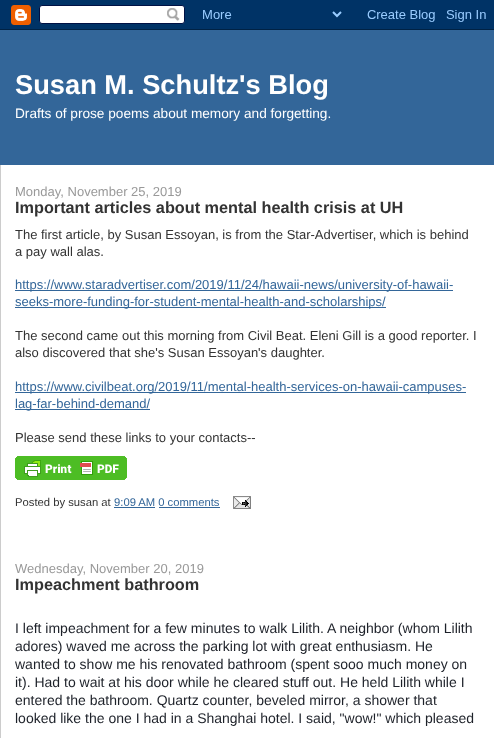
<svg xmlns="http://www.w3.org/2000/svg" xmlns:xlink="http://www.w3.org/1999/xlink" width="494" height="738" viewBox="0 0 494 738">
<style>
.cls-1{font:bold 27.25px Liberation Sans;fill:#ffffff}
.cls-2{font:13.65px Liberation Sans;fill:#ffffff}
.cls-3{font:13px Liberation Sans;fill:#999999}
.cls-4{font:bold 16.25px Liberation Sans;fill:#333333}
.cls-5{font:13px Liberation Sans;fill:#333333}
.cls-6{font:13px Liberation Sans;fill:#336699}
.cls-7{font:11.25px Liberation Sans;fill:#333333}
.cls-8{font:11.25px Liberation Sans;fill:#336699}
.cls-9{font:14px Liberation Sans;fill:#1d2129}
</style>
<rect width="100%" height="100%" fill="#336699"/>
<image xlink:href="image0.png" x="0" y="0" width="494" height="30"/>
<rect fill="#ffffff" x="1" y="165" width="493" height="573"/>
<rect fill="#cccccc" x="0" y="165" width="1" height="573"/>
<rect fill="#336699" x="15" y="290" width="438" height="1"/>
<rect fill="#336699" x="15" y="307" width="371" height="1"/>
<rect fill="#336699" x="15" y="392" width="451" height="1"/>
<rect fill="#336699" x="15" y="409" width="135" height="1"/>
<image xlink:href="image1.png" x="15" y="456" width="112" height="24"/>
<rect fill="#336699" x="114" y="507" width="41" height="1"/>
<image xlink:href="image2.png" x="233" y="496" width="18" height="13"/>
<rect fill="#336699" x="159" y="507" width="61" height="1"/>
<text class="cls-1" x="15" y="94">Susan M. Schultz's Blog</text>
<text class="cls-2" x="15" y="118">Drafts of prose poems about memory and forgetting.</text>
<text class="cls-3" x="15" y="196">Monday, November 25, 2019</text>
<text class="cls-4" x="15" y="213">Important articles about mental health crisis at UH</text>
<text class="cls-5"><tspan x="15" y="239">The first article, by Susan Essoyan, is from the Star-Advertiser, which is behind</tspan><tspan x="15" y="256">a pay wall alas.</tspan></text>
<text class="cls-6"><tspan x="15" y="289">https://www.staradvertiser.com/2019/11/24/hawaii-news/university-of-hawaii-</tspan><tspan x="15" y="306">seeks-more-funding-for-student-mental-health-and-scholarships/</tspan></text>
<text class="cls-5"><tspan x="15" y="340">The second came out this morning from Civil Beat. Eleni Gill is a good reporter. I</tspan><tspan x="15" y="357">also discovered that she's Susan Essoyan's daughter.</tspan></text>
<text class="cls-6"><tspan x="15" y="391">https://www.civilbeat.org/2019/11/mental-health-services-on-hawaii-campuses-</tspan><tspan x="15" y="408">lag-far-behind-demand/</tspan></text>
<text class="cls-5" x="15" y="442">Please send these links to your contacts--</text>
<text class="cls-7" x="15" y="506">Posted by susan at</text>
<text class="cls-8" x="114" y="506">9:09 AM 0 comments</text>
<text class="cls-3" x="15" y="573">Wednesday, November 20, 2019</text>
<text class="cls-4" x="15" y="590">Impeachment bathroom</text>
<text class="cls-9"><tspan x="15" y="633">I left impeachment for a few minutes to walk Lilith. A neighbor (whom Lilith</tspan><tspan x="15" y="651">adores) waved me across the parking lot with great enthusiasm. He</tspan><tspan x="15" y="669">wanted to show me his renovated bathroom (spent sooo much money on</tspan><tspan x="15" y="687">it). Had to wait at his door while he cleared stuff out. He held Lilith while I</tspan><tspan x="15" y="705">entered the bathroom. Quartz counter, beveled mirror, a shower that</tspan><tspan x="15" y="723">looked like the one I had in a Shanghai hotel. I said, "wow!" which pleased</tspan></text>
</svg>
